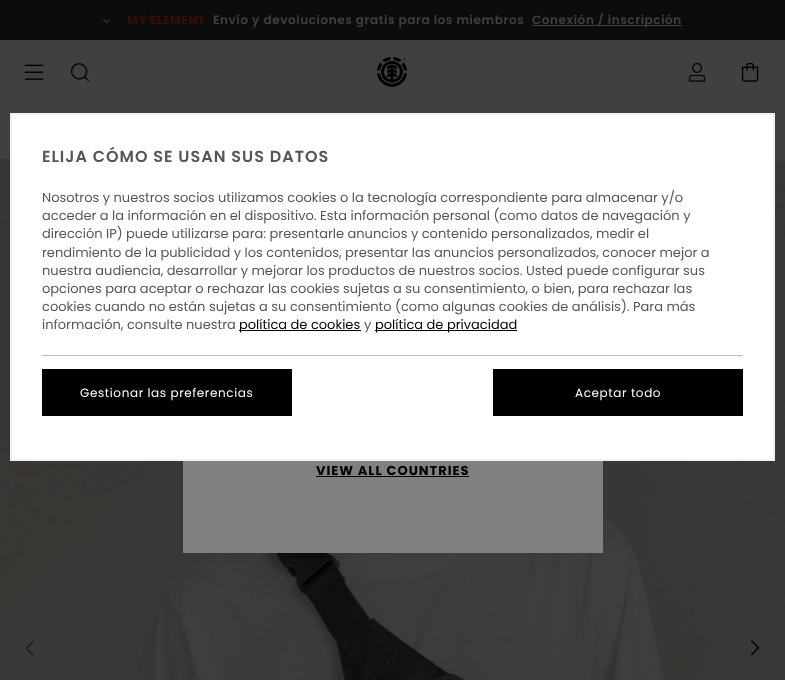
<svg xmlns="http://www.w3.org/2000/svg" xmlns:xlink="http://www.w3.org/1999/xlink" width="785" height="680" viewBox="0 0 785 680">
<style>
.cls-1{font:600 12px Poppins;letter-spacing:0.6px;fill:#3c0f06}
.cls-2{font:600 12px Poppins;letter-spacing:0.6px;fill:#404040}
.cls-3{font:600 16px Poppins;letter-spacing:1px;fill:#565656}
.cls-4{font:13px Poppins;fill:#565656}
.cls-5{font:13px Poppins;fill:#000000}
.cls-6{font:12px Poppins;letter-spacing:0.6px;fill:#ffffff}
.cls-7{font:bold 13px Poppins;letter-spacing:1px;fill:#000000}
</style>
<rect width="100%" height="100%" fill="#404040"/>
<rect fill="#3a3a3a" x="0" y="104" width="785" height="1"/>
<rect fill="#0c0c0c" x="0" y="0" width="785" height="40"/>
<image xlink:href="image0.png" x="103" y="19" width="7" height="4"/>
<rect fill="#404040" x="532" y="25" width="150" height="1"/>
<image xlink:href="image1.png" x="377" y="57" width="30" height="30"/>
<image xlink:href="image2.png" x="24" y="64" width="20" height="16"/>
<image xlink:href="image3.png" x="70" y="63" width="20" height="19"/>
<image xlink:href="image4.png" x="688" y="62" width="18" height="20"/>
<image xlink:href="image5.png" x="741" y="62" width="18" height="20"/>
<image xlink:href="image6.png" x="0" y="159" width="785" height="521"/>
<image xlink:href="image7.png" x="25" y="640" width="9" height="16"/>
<image xlink:href="image8.png" x="750" y="640" width="10" height="16"/>
<rect fill="#ffffff" x="12" y="115" width="761" height="344"/>
<rect fill="none" stroke="#eff2f4" x="10.5" y="113.5" width="764" height="347"/>
<rect fill="none" stroke="#eff2f4" x="11.5" y="114.5" width="762" height="345"/>
<rect fill="#000000" x="239" y="330" width="122" height="1"/>
<rect fill="#000000" x="375" y="330" width="142" height="1"/>
<rect fill="#bbbbbb" x="42" y="355" width="701" height="1"/>
<rect fill="#000000" x="42" y="369" width="250" height="47"/>
<rect fill="#000000" x="493" y="369" width="250" height="47"/>
<rect fill="#808080" x="183" y="461" width="420" height="92"/>
<rect fill="#000000" x="316" y="476" width="153" height="1"/>
<text class="cls-1" x="127" y="24">MY ELEMENT</text>
<text class="cls-2" x="213" y="24">Envío y devoluciones gratis para los miembros</text>
<text class="cls-2" x="532" y="24">Conexión / inscripción</text>
<text class="cls-3" x="42" y="162">ELIJA CÓMO SE USAN SUS DATOS</text>
<text class="cls-4"><tspan x="42" y="202">Nosotros y nuestros socios utilizamos cookies o la tecnología correspondiente para almacenar y/o</tspan><tspan x="42" y="220">acceder a la información en el dispositivo. Esta información personal (como datos de navegación y</tspan><tspan x="42" y="238">dirección IP) puede utilizarse para: presentarle anuncios y contenido personalizados, medir el</tspan><tspan x="42" y="257">rendimiento de la publicidad y los contenidos, presentar las anuncios personalizados, conocer mejor a</tspan><tspan x="42" y="275">nuestra audiencia, desarrollar y mejorar los productos de nuestros socios. Usted puede configurar sus</tspan><tspan x="42" y="293">opciones para aceptar o rechazar las cookies sujetas a su consentimiento, o bien, para rechazar las</tspan><tspan x="42" y="311">cookies cuando no están sujetas a su consentimiento (como algunas cookies de análisis). Para más</tspan><tspan x="42" y="329">información, consulte nuestra</tspan></text>
<text class="cls-5" x="239" y="329">política de cookies</text>
<text class="cls-4" x="364" y="329">y</text>
<text class="cls-5" x="375" y="329">política de privacidad</text>
<text class="cls-6" x="80" y="397">Gestionar las preferencias</text>
<text class="cls-6" x="575" y="397">Aceptar todo</text>
<text class="cls-7" x="316" y="475">VIEW ALL COUNTRIES</text>
</svg>
